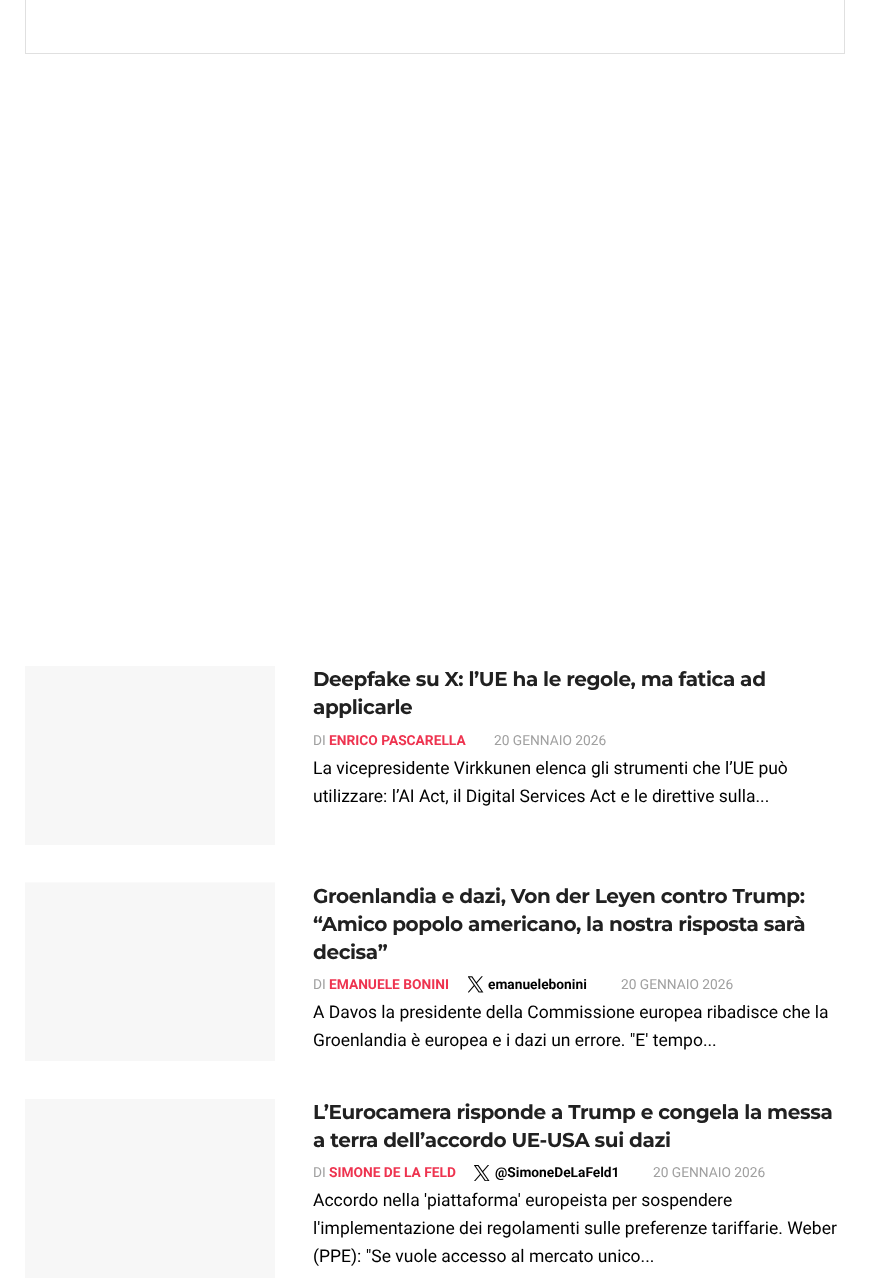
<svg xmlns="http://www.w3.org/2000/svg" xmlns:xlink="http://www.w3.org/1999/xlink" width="869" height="1282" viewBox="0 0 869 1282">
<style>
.cls-1{font:bold 20px Montserrat;letter-spacing:-0.4px;fill:#212121}
.cls-2{font:13.75px Roboto;fill:#a0a0a0}
.cls-3{font:bold 13.75px Roboto;fill:#ee334f}
.cls-4{font:17.5px Roboto;fill:#000000}
.cls-5{font:bold 13.75px Roboto;fill:#000000}
</style>
<rect width="100%" height="100%" fill="#ffffff"/>
<rect fill="none" stroke="#e0e0e0" x="25.5" y="-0.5" width="819" height="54"/>
<rect fill="#f7f7f7" x="25" y="666" width="250" height="179"/>
<rect fill="#f7f7f7" x="25" y="883" width="250" height="178"/>
<rect fill="#fafafa" x="25" y="882" width="250" height="1"/>
<image xlink:href="image0.png" x="468" y="976" width="16" height="17"/>
<rect fill="#f7f7f7" x="25" y="1099" width="250" height="179"/>
<image xlink:href="image1.png" x="474" y="1165" width="16" height="16"/>
<text class="cls-1"><tspan x="313" y="686">Deepfake su X: l’UE ha le regole, ma fatica ad</tspan><tspan x="313" y="714">applicarle</tspan></text>
<text class="cls-2" x="313" y="745">DI</text>
<text class="cls-3" x="329" y="745">ENRICO PASCARELLA</text>
<text class="cls-2" x="494" y="745">20 GENNAIO 2026</text>
<text class="cls-4"><tspan x="313" y="774">La vicepresidente Virkkunen elenca gli strumenti che l’UE può</tspan><tspan x="313" y="802">utilizzare: l’AI Act, il Digital Services Act e le direttive sulla...</tspan></text>
<text class="cls-1"><tspan x="313" y="903">Groenlandia e dazi, Von der Leyen contro Trump:</tspan><tspan x="313" y="931">“Amico popolo americano, la nostra risposta sarà</tspan><tspan x="313" y="959">decisa”</tspan></text>
<text class="cls-2" x="313" y="989">DI</text>
<text class="cls-3" x="329" y="989">EMANUELE BONINI</text>
<text class="cls-5" x="488" y="989">emanuelebonini</text>
<text class="cls-2" x="621" y="989">20 GENNAIO 2026</text>
<text class="cls-4"><tspan x="313" y="1018">A Davos la presidente della Commissione europea ribadisce che la</tspan><tspan x="313" y="1046">Groenlandia è europea e i dazi un errore. "E' tempo...</tspan></text>
<text class="cls-1"><tspan x="313" y="1119">L’Eurocamera risponde a Trump e congela la messa</tspan><tspan x="313" y="1147">a terra dell’accordo UE-USA sui dazi</tspan></text>
<text class="cls-2" x="313" y="1177">DI</text>
<text class="cls-3" x="329" y="1177">SIMONE DE LA FELD</text>
<text class="cls-5" x="495" y="1177">@SimoneDeLaFeld1</text>
<text class="cls-2" x="653" y="1177">20 GENNAIO 2026</text>
<text class="cls-4"><tspan x="313" y="1206">Accordo nella 'piattaforma' europeista per sospendere</tspan><tspan x="313" y="1234">l'implementazione dei regolamenti sulle preferenze tariffarie. Weber</tspan><tspan x="313" y="1262">(PPE): "Se vuole accesso al mercato unico...</tspan></text>
</svg>
